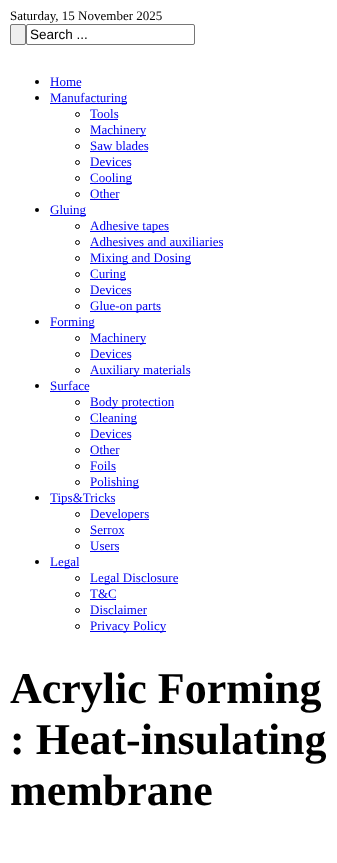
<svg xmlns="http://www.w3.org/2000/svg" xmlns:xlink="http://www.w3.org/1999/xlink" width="337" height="863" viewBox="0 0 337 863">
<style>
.cls-1{font:13px Liberation Serif;fill:#000000}
.cls-2{font:13.5px Liberation Sans;fill:#000000}
.cls-3{font:13px Liberation Serif;fill:#0000ee}
.cls-4{font:bold 44px Liberation Serif;fill:#000000}
</style>
<rect width="100%" height="100%" fill="#ffffff"/>
<rect fill="#efefef" stroke="#767676" x="10.5" y="24.5" width="15" height="20" rx="1.5"/>
<rect fill="none" stroke="#767676" x="26.5" y="24.5" width="168" height="20" rx="1.5"/>
<circle fill="#000000" cx="37" cy="82" r="2"/>
<rect fill="#0000ee" x="50" y="87" width="31" height="1"/>
<circle fill="#000000" cx="37" cy="98" r="2"/>
<rect fill="#0000ee" x="50" y="103" width="77" height="1"/>
<circle fill="none" stroke="#000000" cx="77.5" cy="114.5" r="2"/>
<rect fill="#0000ee" x="90" y="119" width="28" height="1"/>
<circle fill="none" stroke="#000000" cx="77.5" cy="130.5" r="2"/>
<rect fill="#0000ee" x="90" y="135" width="56" height="1"/>
<circle fill="none" stroke="#000000" cx="77.5" cy="146.5" r="2"/>
<rect fill="#0000ee" x="90" y="151" width="58" height="1"/>
<circle fill="none" stroke="#000000" cx="77.5" cy="162.5" r="2"/>
<rect fill="#0000ee" x="90" y="167" width="41" height="1"/>
<circle fill="none" stroke="#000000" cx="77.5" cy="178.5" r="2"/>
<rect fill="#0000ee" x="90" y="183" width="42" height="1"/>
<circle fill="none" stroke="#000000" cx="77.5" cy="194.5" r="2"/>
<rect fill="#0000ee" x="90" y="199" width="29" height="1"/>
<circle fill="#000000" cx="37" cy="210" r="2"/>
<rect fill="#0000ee" x="50" y="215" width="36" height="1"/>
<circle fill="none" stroke="#000000" cx="77.5" cy="226.5" r="2"/>
<rect fill="#0000ee" x="90" y="231" width="79" height="1"/>
<circle fill="none" stroke="#000000" cx="77.5" cy="242.5" r="2"/>
<rect fill="#0000ee" x="90" y="247" width="133" height="1"/>
<circle fill="none" stroke="#000000" cx="77.5" cy="258.5" r="2"/>
<rect fill="#0000ee" x="90" y="263" width="101" height="1"/>
<circle fill="none" stroke="#000000" cx="77.5" cy="274.5" r="2"/>
<rect fill="#0000ee" x="90" y="279" width="36" height="1"/>
<circle fill="none" stroke="#000000" cx="77.5" cy="290.5" r="2"/>
<rect fill="#0000ee" x="90" y="295" width="41" height="1"/>
<circle fill="none" stroke="#000000" cx="77.5" cy="306.5" r="2"/>
<rect fill="#0000ee" x="90" y="311" width="71" height="1"/>
<circle fill="#000000" cx="37" cy="322" r="2"/>
<rect fill="#0000ee" x="50" y="327" width="44" height="1"/>
<circle fill="none" stroke="#000000" cx="77.5" cy="338.5" r="2"/>
<rect fill="#0000ee" x="90" y="343" width="56" height="1"/>
<circle fill="none" stroke="#000000" cx="77.5" cy="354.5" r="2"/>
<rect fill="#0000ee" x="90" y="359" width="41" height="1"/>
<circle fill="none" stroke="#000000" cx="77.5" cy="370.5" r="2"/>
<rect fill="#0000ee" x="90" y="375" width="100" height="1"/>
<circle fill="#000000" cx="37" cy="386" r="2"/>
<rect fill="#0000ee" x="50" y="391" width="39" height="1"/>
<circle fill="none" stroke="#000000" cx="77.5" cy="402.5" r="2"/>
<rect fill="#0000ee" x="90" y="407" width="84" height="1"/>
<circle fill="none" stroke="#000000" cx="77.5" cy="418.5" r="2"/>
<rect fill="#0000ee" x="90" y="423" width="47" height="1"/>
<circle fill="none" stroke="#000000" cx="77.5" cy="434.5" r="2"/>
<rect fill="#0000ee" x="90" y="439" width="41" height="1"/>
<circle fill="none" stroke="#000000" cx="77.5" cy="450.5" r="2"/>
<rect fill="#0000ee" x="90" y="455" width="29" height="1"/>
<circle fill="none" stroke="#000000" cx="77.5" cy="466.5" r="2"/>
<rect fill="#0000ee" x="90" y="471" width="26" height="1"/>
<circle fill="none" stroke="#000000" cx="77.5" cy="482.5" r="2"/>
<rect fill="#0000ee" x="90" y="487" width="49" height="1"/>
<circle fill="#000000" cx="37" cy="498" r="2"/>
<rect fill="#0000ee" x="50" y="503" width="65" height="1"/>
<circle fill="none" stroke="#000000" cx="77.5" cy="514.5" r="2"/>
<rect fill="#0000ee" x="90" y="519" width="59" height="1"/>
<circle fill="none" stroke="#000000" cx="77.5" cy="530.5" r="2"/>
<rect fill="#0000ee" x="90" y="535" width="34" height="1"/>
<circle fill="none" stroke="#000000" cx="77.5" cy="546.5" r="2"/>
<rect fill="#0000ee" x="90" y="551" width="29" height="1"/>
<circle fill="#000000" cx="37" cy="562" r="2"/>
<rect fill="#0000ee" x="50" y="567" width="29" height="1"/>
<circle fill="none" stroke="#000000" cx="77.5" cy="578.5" r="2"/>
<rect fill="#0000ee" x="90" y="583" width="88" height="1"/>
<circle fill="none" stroke="#000000" cx="77.5" cy="594.5" r="2"/>
<rect fill="#0000ee" x="90" y="599" width="26" height="1"/>
<circle fill="none" stroke="#000000" cx="77.5" cy="610.5" r="2"/>
<rect fill="#0000ee" x="90" y="615" width="57" height="1"/>
<circle fill="none" stroke="#000000" cx="77.5" cy="626.5" r="2"/>
<rect fill="#0000ee" x="90" y="631" width="76" height="1"/>
<text class="cls-1" x="10" y="20">Saturday, 15 November 2025</text>
<text class="cls-2" x="30" y="39">Search ...</text>
<text class="cls-3"><tspan x="50" y="86">Home</tspan><tspan x="50" y="102">Manufacturing</tspan></text>
<text class="cls-3"><tspan x="90" y="118">Tools</tspan><tspan x="90" y="134">Machinery</tspan><tspan x="90" y="150">Saw blades</tspan><tspan x="90" y="166">Devices</tspan><tspan x="90" y="182">Cooling</tspan><tspan x="90" y="198">Other</tspan></text>
<text class="cls-3" x="50" y="214">Gluing</text>
<text class="cls-3"><tspan x="90" y="230">Adhesive tapes</tspan><tspan x="90" y="246">Adhesives and auxiliaries</tspan><tspan x="90" y="262">Mixing and Dosing</tspan><tspan x="90" y="278">Curing</tspan><tspan x="90" y="294">Devices</tspan><tspan x="90" y="310">Glue-on parts</tspan></text>
<text class="cls-3" x="50" y="326">Forming</text>
<text class="cls-3"><tspan x="90" y="342">Machinery</tspan><tspan x="90" y="358">Devices</tspan><tspan x="90" y="374">Auxiliary materials</tspan></text>
<text class="cls-3" x="50" y="390">Surface</text>
<text class="cls-3"><tspan x="90" y="406">Body protection</tspan><tspan x="90" y="422">Cleaning</tspan><tspan x="90" y="438">Devices</tspan><tspan x="90" y="454">Other</tspan><tspan x="90" y="470">Foils</tspan><tspan x="90" y="486">Polishing</tspan></text>
<text class="cls-3" x="50" y="502">Tips&amp;Tricks</text>
<text class="cls-3"><tspan x="90" y="518">Developers</tspan><tspan x="90" y="534">Serrox</tspan><tspan x="90" y="550">Users</tspan></text>
<text class="cls-3" x="50" y="566">Legal</text>
<text class="cls-3"><tspan x="90" y="582">Legal Disclosure</tspan><tspan x="90" y="598">T&amp;C</tspan><tspan x="90" y="614">Disclaimer</tspan><tspan x="90" y="630">Privacy Policy</tspan></text>
<text class="cls-4"><tspan x="10" y="703">Acrylic Forming</tspan><tspan x="10" y="754">: Heat-insulating</tspan><tspan x="10" y="805">membrane</tspan></text>
</svg>
